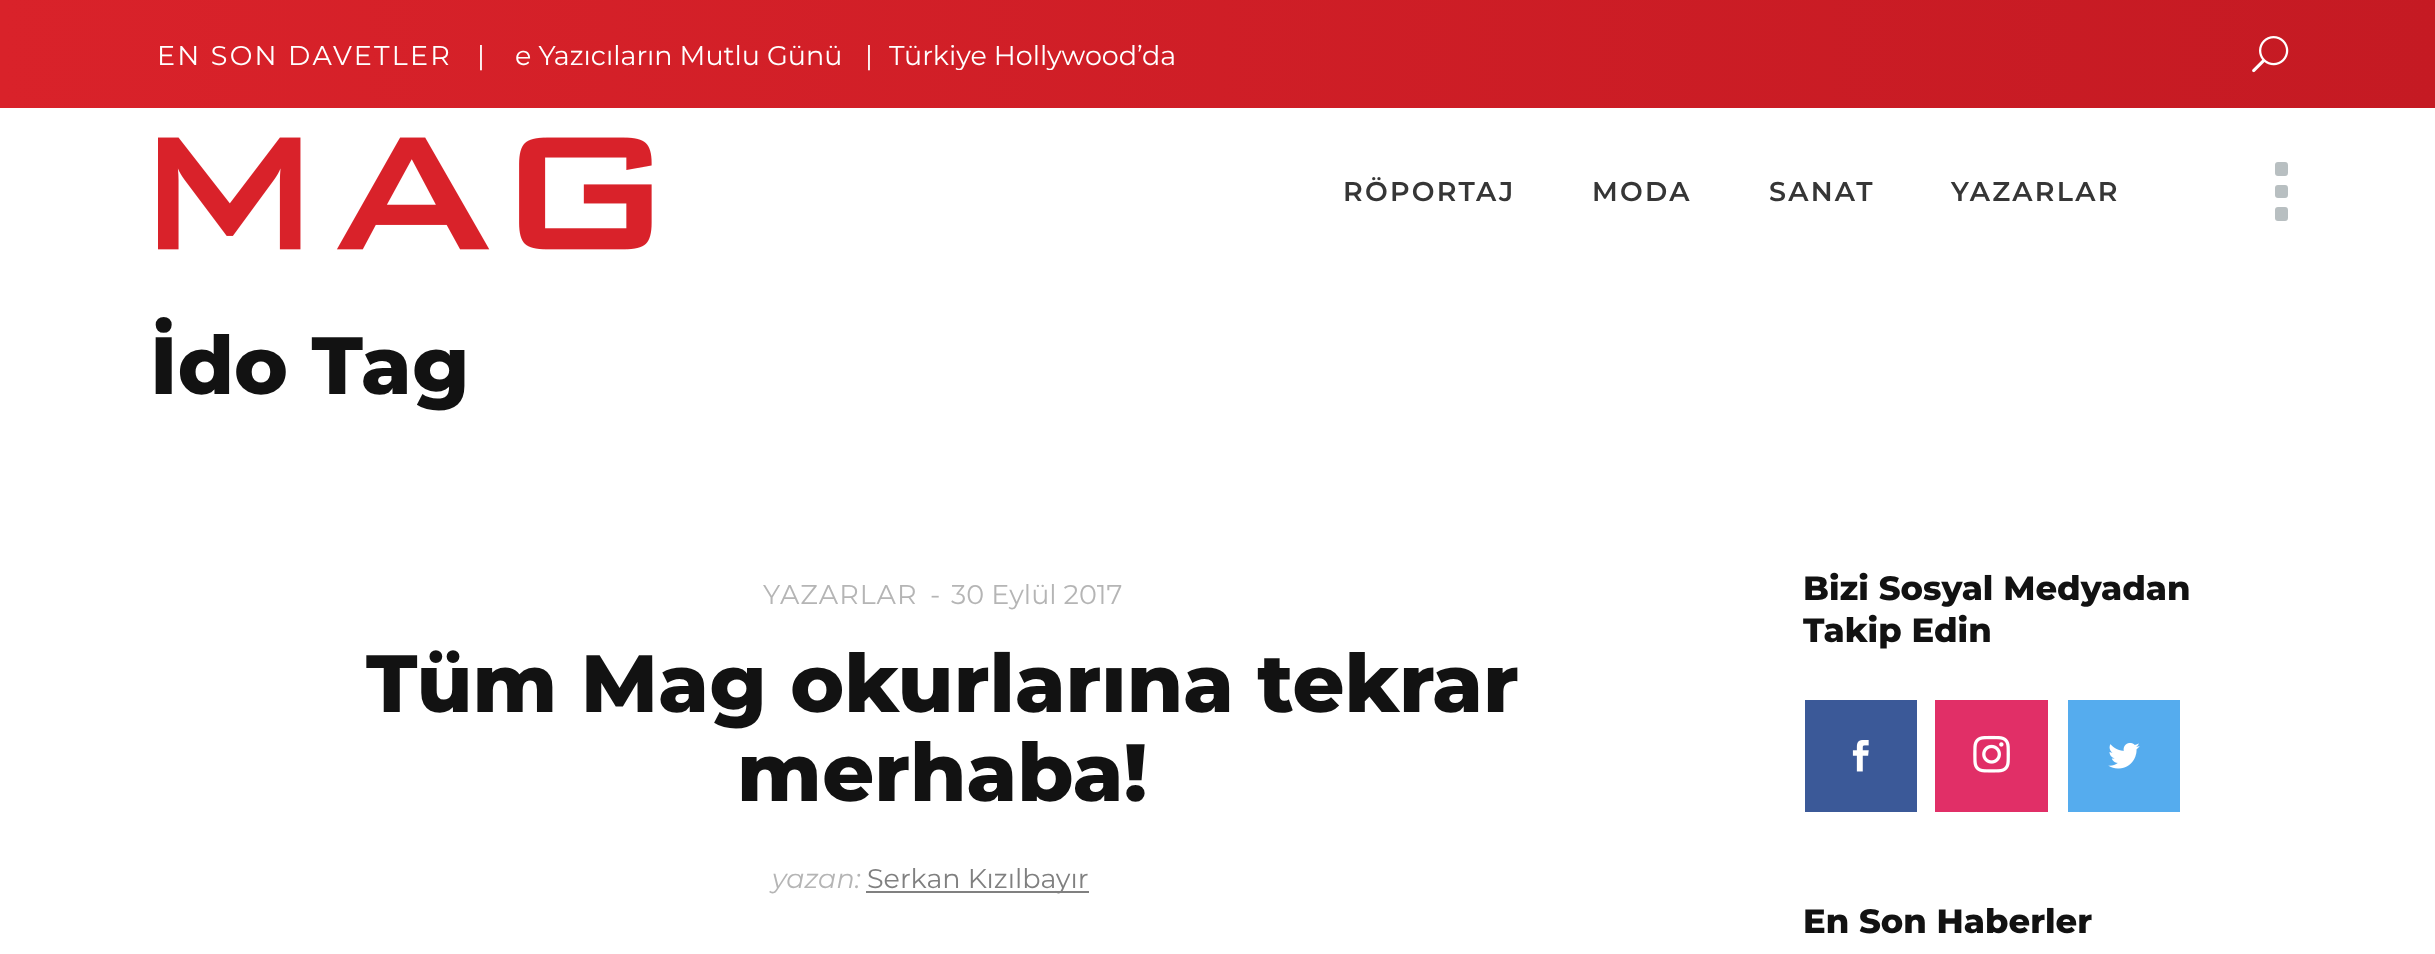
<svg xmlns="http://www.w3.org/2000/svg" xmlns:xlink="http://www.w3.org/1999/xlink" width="2435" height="954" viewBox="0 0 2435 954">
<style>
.cls-1{font:27px Montserrat;letter-spacing:2.25px;fill:#ffffff}
.cls-2{font:27px Montserrat;fill:#ffffff}
.cls-3{font:600 27px Montserrat;letter-spacing:2.25px;fill:#363636}
.cls-4{font:800 81px Montserrat;fill:#121212}
.cls-5{font:27px Montserrat;letter-spacing:1px;fill:#b5b5b5}
.cls-6{font:27px Montserrat;fill:#b5b5b5}
.cls-7{font:italic 27px Montserrat;fill:#b5b5b5}
.cls-8{font:27px Montserrat;fill:#808080}
.cls-9{font:800 33.75px Montserrat;fill:#121212}
</style>
<defs>
<linearGradient id="g1" gradientUnits="userSpaceOnUse" x1="0" y1="54" x2="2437" y2="54"><stop offset="0" stop-color="#d9222a"/><stop offset="1" stop-color="#c51a23"/></linearGradient>
<clipPath id="clip1"><rect x="509" y="41" width="675" height="29"/></clipPath>
</defs>
<rect width="100%" height="100%" fill="#ffffff"/>
<rect fill="url(#g1)" x="0" y="0" width="2435" height="108"/>
<image xlink:href="image0.png" x="2252" y="36" width="37" height="37"/>
<image xlink:href="image1.png" x="158" y="137" width="494" height="113"/>
<rect fill="#b8bfc1" x="2275" y="162" width="13" height="14" rx="3"/>
<rect fill="#b8bfc1" x="2275" y="185" width="13" height="13" rx="3"/>
<rect fill="#b8bfc1" x="2275" y="207" width="13" height="14" rx="3"/>
<rect fill="#808080" x="866" y="891" width="223" height="2"/>
<rect fill="#3b5998" x="1805" y="700" width="112" height="112"/>
<image xlink:href="image2.png" x="1852" y="740" width="17" height="32"/>
<rect fill="#e12f67" x="1935" y="700" width="113" height="112"/>
<image xlink:href="image3.png" x="1973" y="735" width="37" height="38"/>
<rect fill="#55acee" x="2068" y="700" width="112" height="112"/>
<image xlink:href="image4.png" x="2108" y="742" width="32" height="27"/>
<text class="cls-1" x="157" y="65">EN SON DAVETLER</text>
<text class="cls-2" x="477" y="65">|</text>
<text class="cls-2" x="515" y="65">e Yazıcıların Mutlu Günü</text>
<text class="cls-2" x="865" y="65">|</text>
<g clip-path="url(#clip1)">
<text class="cls-2" x="889" y="65">Türkiye Hollywood’da</text>
</g>
<text class="cls-3" x="1343" y="201">RÖPORTAJ</text>
<text class="cls-3" x="1592" y="201">MODA</text>
<text class="cls-3" x="1769" y="201">SANAT</text>
<text class="cls-3" x="1951" y="201">YAZARLAR</text>
<text class="cls-4" x="150" y="394">İdo Tag</text>
<text class="cls-5" x="763" y="604">YAZARLAR</text>
<text class="cls-5" x="930" y="604">-</text>
<text class="cls-6" x="951" y="604">30 Eylül 2017</text>
<text class="cls-4" x="366" y="712">Tüm Mag okurlarına tekrar</text>
<text class="cls-4" x="737" y="801">merhaba!</text>
<text class="cls-7" x="772" y="888">yazan:</text>
<text class="cls-8" x="867" y="888">Serkan Kızılbayır</text>
<text class="cls-9"><tspan x="1803" y="600">Bizi Sosyal Medyadan</tspan><tspan x="1803" y="642">Takip Edin</tspan></text>
<text class="cls-9" x="1803" y="933">En Son Haberler</text>
</svg>
